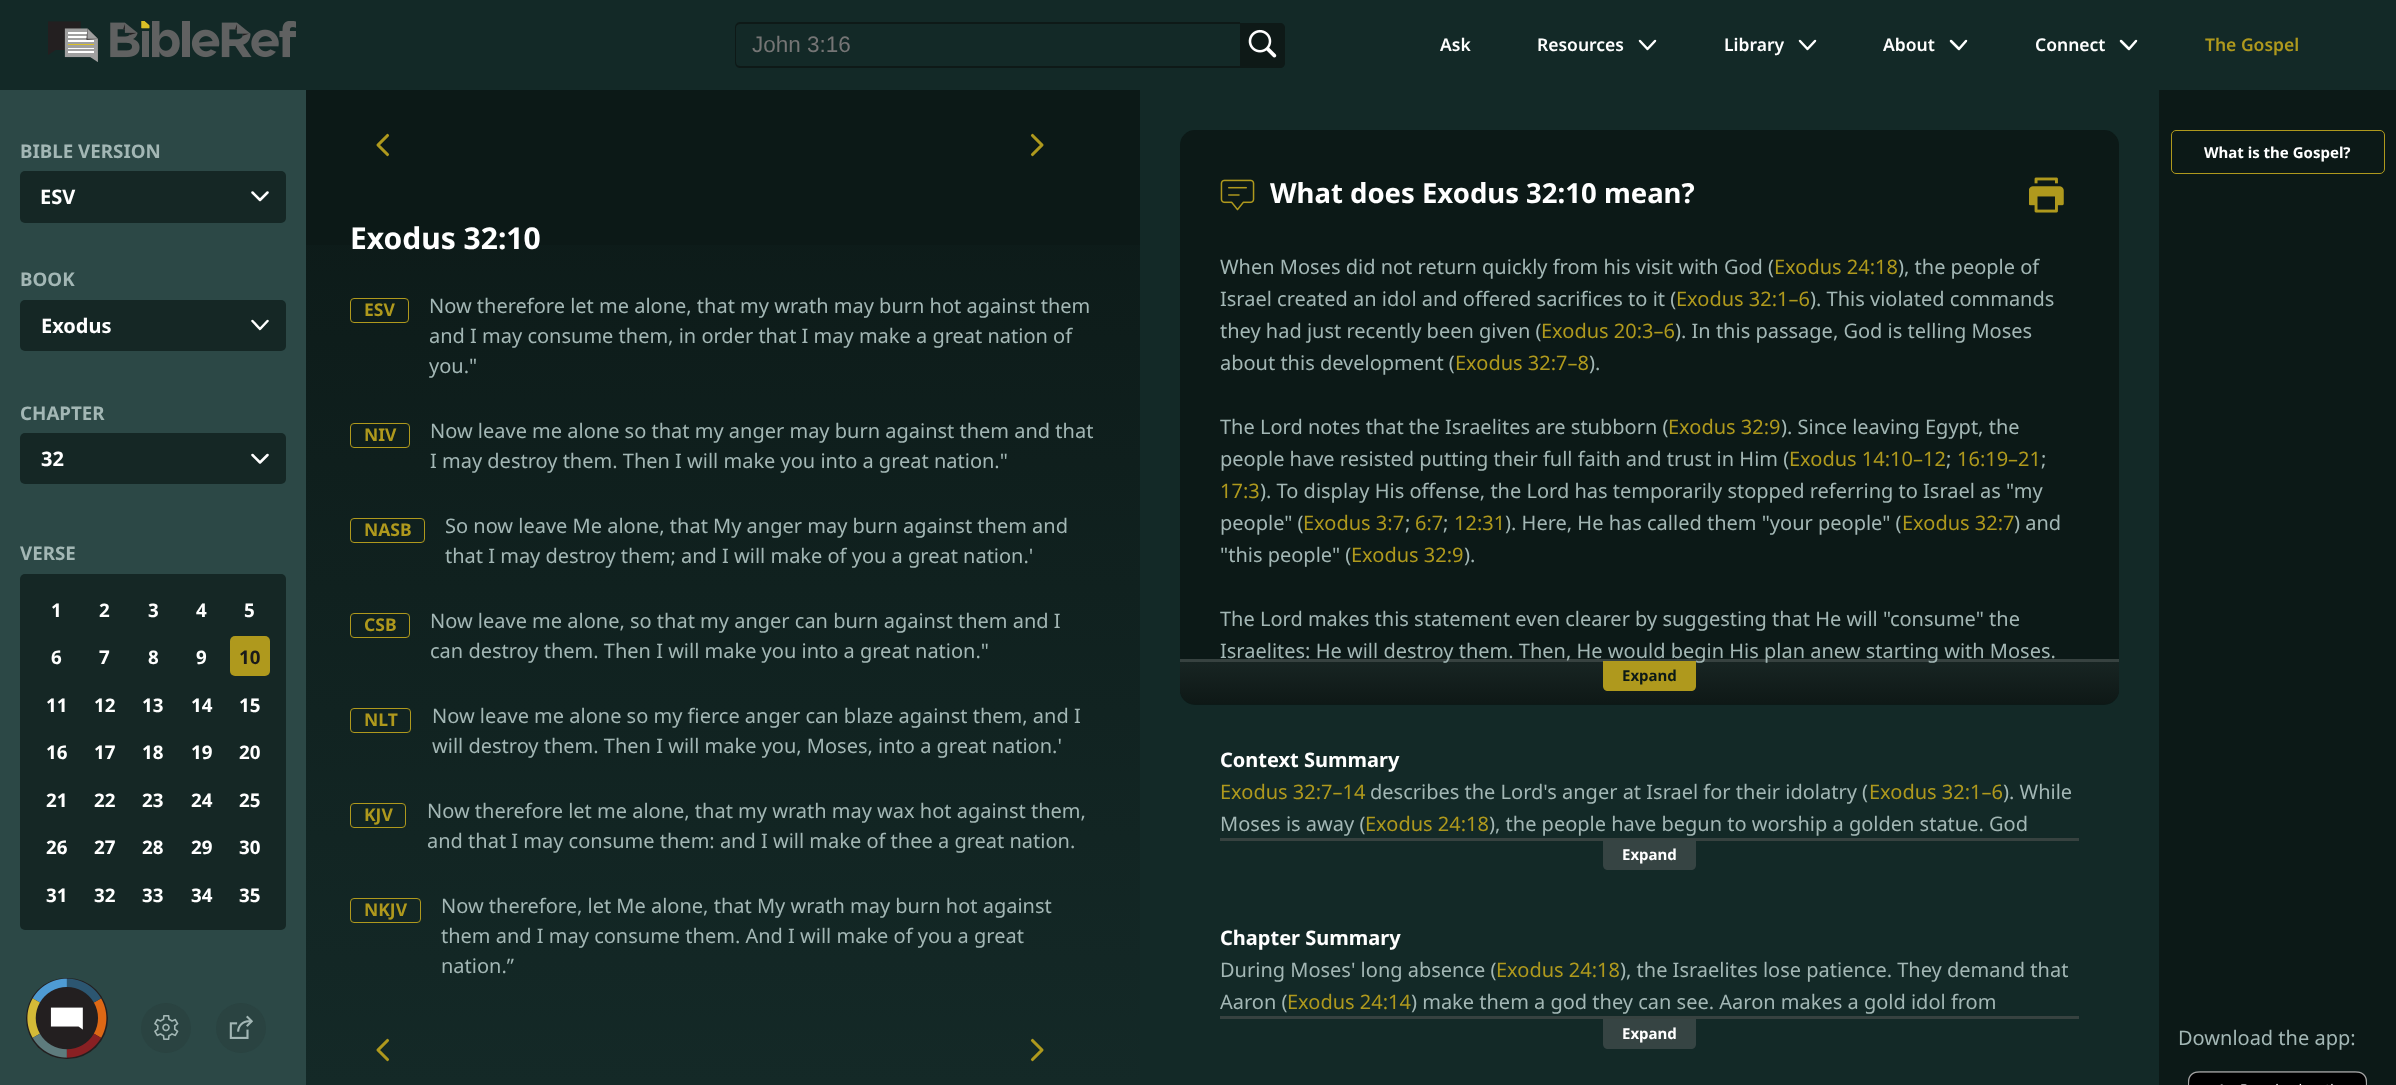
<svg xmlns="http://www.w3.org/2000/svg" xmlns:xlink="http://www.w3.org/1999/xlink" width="2396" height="1085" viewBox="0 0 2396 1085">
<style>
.cls-1{font:22.5px Liberation Sans;fill:#757575}
.cls-2{font:600 17.5px Noto Sans;fill:#ffffff}
.cls-3{font:600 17.5px Noto Sans;fill:#af991d}
.cls-4{font:bold 18.75px Noto Sans;fill:#a3b7b5}
.cls-5{font:bold 20px Noto Sans;fill:#ffffff}
.cls-6{font:bold 18.75px Noto Sans;fill:#ffffff}
.cls-7{font:bold 18.75px Noto Sans;fill:#1a1a1a}
.cls-8{font:bold 30px Noto Sans;fill:#ffffff}
.cls-9{font:bold 17.5px Noto Sans;fill:#af991d}
.cls-10{font:20px Noto Sans;fill:#a3b7b5}
.cls-11{font:bold 27.5px Noto Sans;fill:#ffffff}
.cls-12{font:20px Noto Sans;fill:#af991d}
.cls-13{font:bold 15px Noto Sans;fill:#0c1917}
.cls-14{font:bold 15px Noto Sans;fill:#ffffff}
</style>
<defs>
<linearGradient id="g1" gradientUnits="userSpaceOnUse" x1="723" y1="90" x2="723" y2="1085"><stop offset="0" stop-color="#0c1917"/><stop offset="1" stop-color="#142927"/></linearGradient>
<linearGradient id="g2" gradientUnits="userSpaceOnUse" x1="1649" y1="661" x2="1649" y2="704"><stop offset="0" stop-color="#182523"/><stop offset="1" stop-color="#0e1816"/></linearGradient>
<clipPath id="clip1"><rect x="429" y="290" width="667" height="90"/></clipPath>
</defs>
<rect width="100%" height="100%" fill="#0c1917"/>
<rect fill="#132927" x="0" y="0" width="2396" height="90"/>
<image xlink:href="image0.png" x="48" y="21" width="248" height="41"/>
<path fill="#0e1917" fill-rule="evenodd" d="M740 22H1240V68H740C737 68 735 65 735 62V28C735 25 737 22 740 22ZM740 24H1240V66H740C738 66 736 65 736 62V28C736 25 738 24 740 24Z"/>
<path fill="#0e1917" d="M1240 23H1280C1283 23 1285 25 1285 28V63C1285 66 1283 68 1280 68H1240Z"/>
<image xlink:href="image1.png" x="1248" y="29" width="29" height="29"/>
<path fill="none" stroke="#ffffff" stroke-width="2.5" stroke-linecap="round" stroke-linejoin="round" d="M1655 41L1647.5 49L1640 41"/>
<path fill="none" stroke="#ffffff" stroke-width="2.5" stroke-linecap="round" stroke-linejoin="round" d="M1815 41L1807.5 49L1800 41"/>
<path fill="none" stroke="#ffffff" stroke-width="2.5" stroke-linecap="round" stroke-linejoin="round" d="M1966 41L1959 49L1951 41"/>
<path fill="none" stroke="#ffffff" stroke-width="2.5" stroke-linecap="round" stroke-linejoin="round" d="M2136 41L2129 49L2121 41"/>
<rect fill="#2c4846" x="0" y="90" width="306" height="995"/>
<rect fill="#152725" x="20" y="171" width="266" height="52" rx="5"/>
<path fill="none" stroke="#ffffff" stroke-width="2.5" stroke-linecap="round" stroke-linejoin="round" d="M267.5 192.5L260 200L252.5 192.5"/>
<rect fill="#152725" x="20" y="300" width="266" height="51" rx="5"/>
<path fill="none" stroke="#ffffff" stroke-width="2.5" stroke-linecap="round" stroke-linejoin="round" d="M267.5 321L260 329L252.5 321"/>
<rect fill="#152725" x="20" y="433" width="266" height="51" rx="5"/>
<path fill="none" stroke="#ffffff" stroke-width="2.5" stroke-linecap="round" stroke-linejoin="round" d="M267.5 455L260 462.5L252.5 455"/>
<rect fill="#152725" x="20" y="574" width="266" height="356" rx="5"/>
<rect fill="#af991d" x="230" y="636" width="40" height="40" rx="5"/>
<circle fill="#2a4341" cx="166" cy="1028" r="25"/>
<image xlink:href="image2.png" x="154" y="1015" width="25" height="25"/>
<circle fill="#2a4341" cx="241" cy="1028" r="25"/>
<image xlink:href="image3.png" x="229" y="1015" width="24" height="24"/>
<rect fill="url(#g1)" x="306" y="245" width="834" height="840"/>
<path fill="none" stroke="#af991d" stroke-width="3.1" stroke-linecap="round" stroke-linejoin="round" d="M387.5 135.5L378 145L387.5 154.5"/>
<path fill="none" stroke="#af991d" stroke-width="3.1" stroke-linecap="round" stroke-linejoin="round" d="M1032.5 135.5L1042 145L1032.5 154.5"/>
<rect fill="none" stroke="#af991d" x="350.5" y="298.5" width="58" height="24" rx="3.5"/>
<rect fill="none" stroke="#af991d" x="350.5" y="423.5" width="59" height="24" rx="3.5"/>
<rect fill="none" stroke="#af991d" x="350.5" y="518.5" width="74" height="24" rx="3.5"/>
<rect fill="none" stroke="#af991d" x="350.5" y="613.5" width="59" height="24" rx="3.5"/>
<rect fill="none" stroke="#af991d" x="350.5" y="708.5" width="60" height="24" rx="3.5"/>
<rect fill="none" stroke="#af991d" x="350.5" y="803.5" width="55" height="24" rx="3.5"/>
<rect fill="none" stroke="#af991d" x="350.5" y="898.5" width="70" height="24" rx="3.5"/>
<rect fill="#231f20" x="26" y="978" width="82" height="81" rx="40.5"/>
<image xlink:href="image4.png" x="27" y="978" width="80" height="80"/>
<path fill="none" stroke="#af991d" stroke-width="3.1" stroke-linecap="round" stroke-linejoin="round" d="M387.5 1040.5L378 1050L387.5 1059.5"/>
<path fill="none" stroke="#af991d" stroke-width="3.1" stroke-linecap="round" stroke-linejoin="round" d="M1032.5 1040.5L1042 1050L1032.5 1059.5"/>
<rect fill="#132927" x="1140" y="90" width="1019" height="995"/>
<rect fill="#0c1917" x="1180" y="130" width="939" height="575" rx="15"/>
<image xlink:href="image5.png" x="1220" y="179" width="35" height="32"/>
<image xlink:href="image6.png" x="2029" y="177" width="35" height="36"/>
<path fill="url(#g2)" d="M1180 661V690C1180 698 1187 704 1195 704H2104C2112 704 2119 698 2119 690V661Z"/>
<rect fill="#374240" x="1180" y="659" width="939" height="3"/>
<path fill="#af991d" d="M1603 661H1696V686C1696 689 1694 691 1691 691H1608C1605 691 1603 689 1603 686Z"/>
<rect fill="#374240" x="1220" y="838" width="859" height="3"/>
<path fill="#364443" d="M1603 840H1696V865C1696 868 1694 870 1691 870H1608C1605 870 1603 868 1603 865Z"/>
<rect fill="#374240" x="1220" y="1016" width="859" height="3"/>
<path fill="#364443" d="M1603 1019H1696V1044C1696 1047 1694 1049 1691 1049H1608C1605 1049 1603 1047 1603 1044Z"/>
<rect fill="none" stroke="#af991d" x="2171.5" y="130.5" width="213" height="43" rx="4.5"/>
<image xlink:href="image7.png" x="2188" y="1071" width="179" height="14"/>
<text class="cls-1" x="752" y="52">John 3:16</text>
<text class="cls-2" x="1440" y="51">Ask</text>
<text class="cls-2" x="1537" y="51">Resources</text>
<text class="cls-2" x="1724" y="51">Library</text>
<text class="cls-2" x="1883" y="51">About</text>
<text class="cls-2" x="2035" y="51">Connect</text>
<text class="cls-3" x="2205" y="51">The Gospel</text>
<text class="cls-4" x="20" y="158">BIBLE VERSION</text>
<text class="cls-5" x="40" y="204">ESV</text>
<text class="cls-4" x="20" y="286">BOOK</text>
<text class="cls-5" x="41" y="333">Exodus</text>
<text class="cls-4" x="20" y="420">CHAPTER</text>
<text class="cls-5" x="41" y="466">32</text>
<text class="cls-4" x="20" y="560">VERSE</text>
<text class="cls-6" x="51" y="617">1</text>
<text class="cls-6" x="99" y="617">2</text>
<text class="cls-6" x="148" y="617">3</text>
<text class="cls-6" x="196" y="617">4</text>
<text class="cls-6" x="244" y="617">5</text>
<text class="cls-6" x="51" y="664">6</text>
<text class="cls-6" x="99" y="664">7</text>
<text class="cls-6" x="148" y="664">8</text>
<text class="cls-6" x="196" y="664">9</text>
<text class="cls-7" x="239" y="664">10</text>
<text class="cls-6" x="46" y="712">11</text>
<text class="cls-6" x="94" y="712">12</text>
<text class="cls-6" x="142" y="712">13</text>
<text class="cls-6" x="191" y="712">14</text>
<text class="cls-6" x="239" y="712">15</text>
<text class="cls-6" x="46" y="759">16</text>
<text class="cls-6" x="94" y="759">17</text>
<text class="cls-6" x="142" y="759">18</text>
<text class="cls-6" x="191" y="759">19</text>
<text class="cls-6" x="239" y="759">20</text>
<text class="cls-6" x="46" y="807">21</text>
<text class="cls-6" x="94" y="807">22</text>
<text class="cls-6" x="142" y="807">23</text>
<text class="cls-6" x="191" y="807">24</text>
<text class="cls-6" x="239" y="807">25</text>
<text class="cls-6" x="46" y="854">26</text>
<text class="cls-6" x="94" y="854">27</text>
<text class="cls-6" x="142" y="854">28</text>
<text class="cls-6" x="191" y="854">29</text>
<text class="cls-6" x="239" y="854">30</text>
<text class="cls-6" x="46" y="902">31</text>
<text class="cls-6" x="94" y="902">32</text>
<text class="cls-6" x="142" y="902">33</text>
<text class="cls-6" x="191" y="902">34</text>
<text class="cls-6" x="239" y="902">35</text>
<text class="cls-8" x="350" y="249">Exodus 32:10</text>
<text class="cls-9" x="364" y="316">ESV</text>
<text class="cls-10"><tspan x="429" y="313">Now therefore let me alone, that my wrath may burn hot against them</tspan><tspan x="429" y="343">and I may consume them, in order that I may make a great nation of</tspan></text>
<g clip-path="url(#clip1)">
<text class="cls-10" x="429" y="373">you."</text>
</g>
<text class="cls-9" x="364" y="441">NIV</text>
<text class="cls-10"><tspan x="430" y="438">Now leave me alone so that my anger may burn against them and that</tspan><tspan x="430" y="468">I may destroy them. Then I will make you into a great nation."</tspan></text>
<text class="cls-9" x="364" y="536">NASB</text>
<text class="cls-10"><tspan x="445" y="533">So now leave Me alone, that My anger may burn against them and</tspan><tspan x="445" y="563">that I may destroy them; and I will make of you a great nation.'</tspan></text>
<text class="cls-9" x="364" y="631">CSB</text>
<text class="cls-10"><tspan x="430" y="628">Now leave me alone, so that my anger can burn against them and I</tspan><tspan x="430" y="658">can destroy them. Then I will make you into a great nation."</tspan></text>
<text class="cls-9" x="364" y="726">NLT</text>
<text class="cls-10"><tspan x="432" y="723">Now leave me alone so my fierce anger can blaze against them, and I</tspan><tspan x="432" y="753">will destroy them. Then I will make you, Moses, into a great nation.'</tspan></text>
<text class="cls-9" x="364" y="821">KJV</text>
<text class="cls-10"><tspan x="427" y="818">Now therefore let me alone, that my wrath may wax hot against them,</tspan><tspan x="427" y="848">and that I may consume them: and I will make of thee a great nation.</tspan></text>
<text class="cls-9" x="364" y="916">NKJV</text>
<text class="cls-10"><tspan x="441" y="913">Now therefore, let Me alone, that My wrath may burn hot against</tspan><tspan x="441" y="943">them and I may consume them. And I will make of you a great</tspan><tspan x="441" y="973">nation.”</tspan></text>
<text class="cls-11" x="1270" y="203">What does Exodus 32:10 mean?</text>
<text class="cls-10" x="1220" y="274">When Moses did not return quickly from his visit with God (</text>
<text class="cls-12" x="1774" y="274">Exodus 24:18</text>
<text class="cls-10" x="1898" y="274">), the people of</text>
<text class="cls-10" x="1220" y="306">Israel created an idol and offered sacrifices to it (</text>
<text class="cls-12" x="1676" y="306">Exodus 32:1–6</text>
<text class="cls-10" x="1810" y="306">). This violated commands</text>
<text class="cls-10" x="1220" y="338">they had just recently been given (</text>
<text class="cls-12" x="1541" y="338">Exodus 20:3–6</text>
<text class="cls-10" x="1675" y="338">). In this passage, God is telling Moses</text>
<text class="cls-10" x="1220" y="370">about this development (</text>
<text class="cls-12" x="1455" y="370">Exodus 32:7–8</text>
<text class="cls-10" x="1589" y="370">).</text>
<text class="cls-10" x="1220" y="434">The Lord notes that the Israelites are stubborn (</text>
<text class="cls-12" x="1668" y="434">Exodus 32:9</text>
<text class="cls-10" x="1781" y="434">). Since leaving Egypt, the</text>
<text class="cls-10" x="1220" y="466">people have resisted putting their full faith and trust in Him (</text>
<text class="cls-12" x="1789" y="466">Exodus 14:10–12</text>
<text class="cls-10" x="1946" y="466">;</text>
<text class="cls-12" x="1957" y="466">16:19–21</text>
<text class="cls-10" x="2041" y="466">;</text>
<text class="cls-12" x="1220" y="498">17:3</text>
<text class="cls-10" x="1260" y="498">). To display His offense, the Lord has temporarily stopped referring to Israel as "my</text>
<text class="cls-10" x="1220" y="530">people" (</text>
<text class="cls-12" x="1303" y="530">Exodus 3:7</text>
<text class="cls-10" x="1405" y="530">;</text>
<text class="cls-12" x="1415" y="530">6:7</text>
<text class="cls-10" x="1443" y="530">;</text>
<text class="cls-12" x="1454" y="530">12:31</text>
<text class="cls-10" x="1505" y="530">). Here, He has called them "your people" (</text>
<text class="cls-12" x="1902" y="530">Exodus 32:7</text>
<text class="cls-10" x="2014" y="530">) and</text>
<text class="cls-10" x="1220" y="562">"this people" (</text>
<text class="cls-12" x="1351" y="562">Exodus 32:9</text>
<text class="cls-10" x="1464" y="562">).</text>
<text class="cls-10"><tspan x="1220" y="626">The Lord makes this statement even clearer by suggesting that He will "consume" the</tspan><tspan x="1220" y="658">Israelites: He will destroy them. Then, He would begin His plan anew starting with Moses.</tspan></text>
<text class="cls-13" x="1622" y="681">Expand</text>
<text class="cls-5" x="1220" y="767">Context Summary</text>
<text class="cls-12" x="1220" y="799">Exodus 32:7–14</text>
<text class="cls-10" x="1370" y="799">describes the Lord's anger at Israel for their idolatry (</text>
<text class="cls-12" x="1869" y="799">Exodus 32:1–6</text>
<text class="cls-10" x="2003" y="799">). While</text>
<text class="cls-10" x="1220" y="831">Moses is away (</text>
<text class="cls-12" x="1365" y="831">Exodus 24:18</text>
<text class="cls-10" x="1489" y="831">), the people have begun to worship a golden statue. God</text>
<text class="cls-14" x="1622" y="860">Expand</text>
<text class="cls-5" x="1220" y="945">Chapter Summary</text>
<text class="cls-10" x="1220" y="977">During Moses' long absence (</text>
<text class="cls-12" x="1496" y="977">Exodus 24:18</text>
<text class="cls-10" x="1620" y="977">), the Israelites lose patience. They demand that</text>
<text class="cls-10" x="1220" y="1009">Aaron (</text>
<text class="cls-12" x="1287" y="1009">Exodus 24:14</text>
<text class="cls-10" x="1411" y="1009">) make them a god they can see. Aaron makes a gold idol from</text>
<text class="cls-14" x="1622" y="1039">Expand</text>
<text class="cls-14" x="2204" y="158">What is the Gospel?</text>
<text class="cls-10" x="2178" y="1045">Download the app:</text>
</svg>
